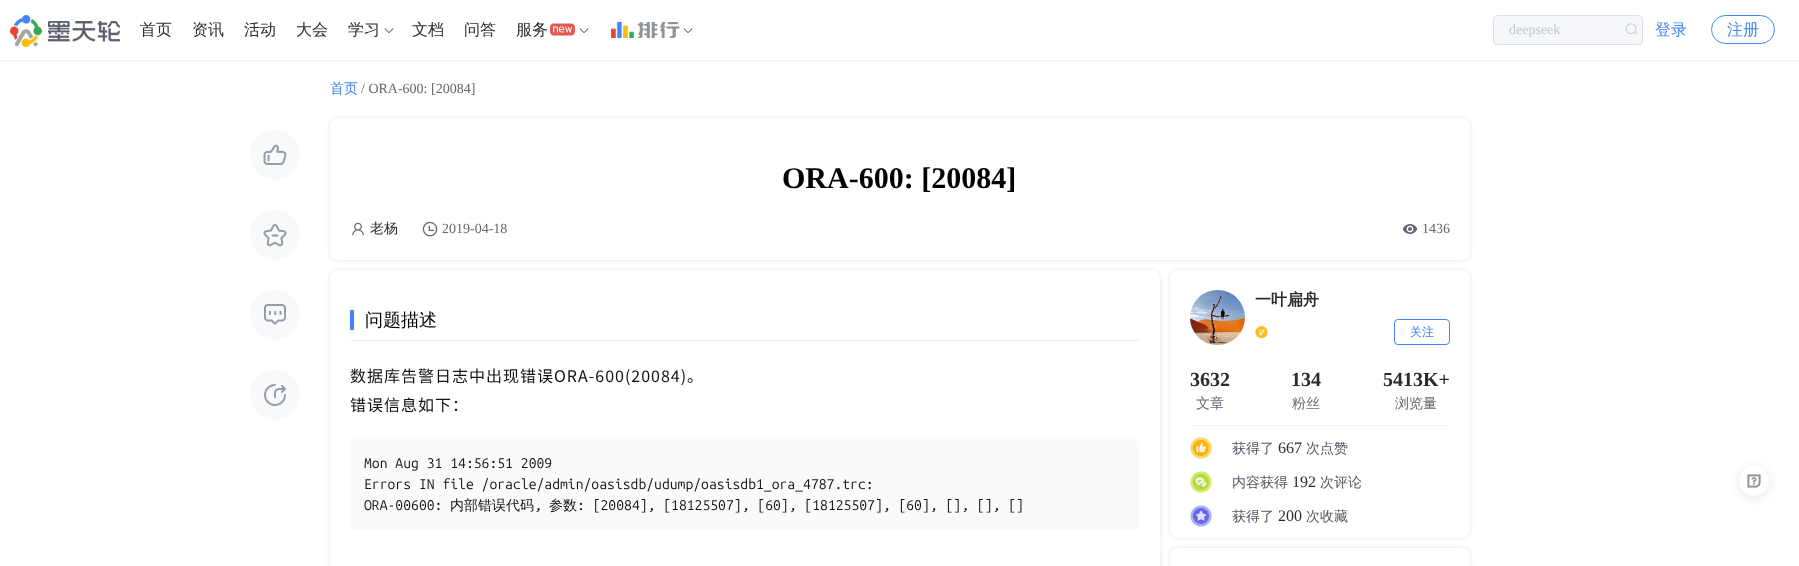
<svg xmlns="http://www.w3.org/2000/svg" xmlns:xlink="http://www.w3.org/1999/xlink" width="1799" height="566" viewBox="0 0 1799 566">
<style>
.cls-1{font:500 16px WenQuanYi Zen Hei;fill:#2b2b2b}
.cls-2{font:14px Liberation Serif;fill:#c0c4cc}
.cls-3{font:500 16px WenQuanYi Zen Hei;fill:#4285f4}
.cls-4{font:500 14px WenQuanYi Zen Hei;fill:#4285f4}
.cls-5{font:14px Liberation Serif;fill:#666666}
.cls-6{font:bold 30px Liberation Serif;fill:#000000}
.cls-7{font:500 14px WenQuanYi Zen Hei;fill:#2b2b2b}
.cls-8{font:14px Liberation Serif;fill:#666777}
.cls-9{font:500 18px WenQuanYi Zen Hei;fill:#000000}
.cls-10{font:16px Noto Sans CJK SC;letter-spacing:1px;fill:#121212}
.cls-11{font:14px Ubuntu Mono;fill:#121212}
.cls-12{font:500 14px WenQuanYi Zen Hei;fill:#121212}
.cls-13{font:bold 16px WenQuanYi Zen Hei;fill:#2b2b2b}
.cls-14{font:500 12px WenQuanYi Zen Hei;fill:#4285f4}
.cls-15{font:bold 20px Liberation Serif;fill:#2b2b2b}
.cls-16{font:500 14px WenQuanYi Zen Hei;fill:#666777}
.cls-17{font:500 14px WenQuanYi Zen Hei;fill:#555666}
.cls-18{font:16px Liberation Serif;fill:#2b2b2b}
</style>
<defs>
<clipPath id="clip1"><rect x="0" y="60" width="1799" height="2"/></clipPath>
</defs>
<rect width="100%" height="100%" fill="#ffffff"/>
<g clip-path="url(#clip1)">
<rect fill="#064399" fill-opacity="0.14" filter="blur(2px)" x="0" y="0" width="1799" height="60"/>
</g>
<image xlink:href="image0.png" x="10" y="15" width="110" height="33"/>
<image xlink:href="image1.png" x="384" y="28" width="10" height="5"/>
<image xlink:href="image2.png" x="550" y="23" width="25" height="13"/>
<image xlink:href="image1.png" x="579" y="28" width="10" height="5"/>
<image xlink:href="image3.png" x="611" y="22" width="23" height="16"/>
<image xlink:href="image4.png" x="638" y="22" width="42" height="16"/>
<image xlink:href="image1.png" x="683" y="28" width="10" height="5"/>
<rect fill="#f5f7fa" stroke="#dcdfe6" x="1493.5" y="15.5" width="149" height="29" rx="3.5"/>
<image xlink:href="image5.png" x="1625" y="23" width="12" height="12"/>
<rect fill="none" stroke="#4285f4" x="1711.5" y="15.5" width="63" height="28" rx="14"/>
<circle fill="#f8f9fa" cx="275" cy="155" r="25"/>
<image xlink:href="image6.png" x="263" y="144" width="24" height="21"/>
<circle fill="#f8f9fa" cx="275" cy="235" r="25"/>
<image xlink:href="image7.png" x="263" y="224" width="24" height="23"/>
<circle fill="#f8f9fa" cx="275" cy="315" r="25"/>
<image xlink:href="image8.png" x="264" y="304" width="22" height="21"/>
<circle fill="#f8f9fa" cx="275" cy="395" r="25"/>
<image xlink:href="image9.png" x="264" y="384" width="22" height="22"/>
<rect fill="#064399" fill-opacity="0.14" filter="blur(2px)" x="330" y="118" width="1140" height="142" rx="8"/>
<rect fill="#ffffff" x="330" y="118" width="1140" height="142" rx="8"/>
<image xlink:href="image10.png" x="352" y="222" width="12" height="14"/>
<image xlink:href="image11.png" x="422" y="221" width="16" height="16"/>
<image xlink:href="image12.png" x="1402" y="224" width="16" height="10"/>
<rect fill="#064399" fill-opacity="0.14" filter="blur(2px)" x="330" y="270" width="830" height="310" rx="8"/>
<path fill="#ffffff" d="M338 270H1152C1156.5 270 1160 273.5 1160 278V566H330V278C330 273.5 333.5 270 338 270Z"/>
<rect fill="#eaeeef" x="350" y="340" width="790" height="1"/>
<rect fill="#4285f4" x="350" y="310" width="4" height="20"/>
<rect fill="#f9fafc" x="350" y="439" width="790" height="91" rx="4"/>
<rect fill="#064399" fill-opacity="0.14" filter="blur(2px)" x="1170" y="270" width="300" height="268" rx="8"/>
<rect fill="#ffffff" x="1170" y="270" width="300" height="268" rx="8"/>
<image xlink:href="image13.png" x="1190" y="290" width="55" height="55"/>
<image xlink:href="image14.png" x="1255" y="326" width="13" height="13"/>
<rect fill="none" stroke="#4285f4" x="1394.5" y="319.5" width="55" height="25" rx="3.5"/>
<rect fill="#f0f2f5" x="1190" y="425" width="260" height="1"/>
<image xlink:href="image15.png" x="1190" y="437" width="22" height="22"/>
<image xlink:href="image16.png" x="1190" y="471" width="22" height="22"/>
<image xlink:href="image17.png" x="1190" y="505" width="22" height="22"/>
<rect fill="#064399" fill-opacity="0.14" filter="blur(2px)" x="1170" y="548" width="300" height="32" rx="8"/>
<path fill="#ffffff" d="M1178 548H1462C1466.5 548 1470 551.5 1470 556V566H1170V556C1170 551.5 1173.5 548 1178 548Z"/>
<rect fill="#000000" fill-opacity="0.1" filter="blur(6px)" x="1739" y="468" width="30" height="30" rx="15"/>
<circle fill="#ffffff" cx="1754" cy="481" r="15"/>
<image xlink:href="image18.png" x="1747" y="474" width="14" height="14"/>
<text class="cls-1" x="140" y="35">首页</text>
<text class="cls-1" x="192" y="35">资讯</text>
<text class="cls-1" x="244" y="35">活动</text>
<text class="cls-1" x="296" y="35">大会</text>
<text class="cls-1" x="348" y="35">学习</text>
<text class="cls-1" x="412" y="35">文档</text>
<text class="cls-1" x="464" y="35">问答</text>
<text class="cls-1" x="516" y="35">服务</text>
<text class="cls-2" x="1509" y="34">deepseek</text>
<text class="cls-3" x="1655" y="35">登录</text>
<text class="cls-3" x="1727" y="35">注册</text>
<text class="cls-4" x="330" y="93">首页</text>
<text class="cls-5" x="361" y="93">/ ORA-600: [20084]</text>
<text class="cls-6" x="782" y="188">ORA-600: [20084]</text>
<text class="cls-7" x="370" y="233">老杨</text>
<text class="cls-8" x="442" y="233">2019-04-18</text>
<text class="cls-8" x="1422" y="233">1436</text>
<text class="cls-9" x="365" y="326">问题描述</text>
<text class="cls-10"><tspan x="350" y="382">数据库告警日志中出现错误ORA-600(20084)。</tspan><tspan x="350" y="411">错误信息如下：</tspan></text>
<text class="cls-11"><tspan x="364" y="468">Mon Aug 31 14:56:51 2009</tspan><tspan x="364" y="489">Errors IN file /oracle/admin/oasisdb/udump/oasisdb1_ora_4787.trc:</tspan><tspan x="364" y="510">ORA-00600:</tspan></text>
<text class="cls-12" x="450" y="510">内部错误代码</text>
<text class="cls-11" x="534" y="510">,</text>
<text class="cls-12" x="549" y="510">参数</text>
<text class="cls-11" x="577" y="510">: [20084], [18125507], [60], [18125507], [60], [], [], []</text>
<text class="cls-13" x="1255" y="305">一叶扁舟</text>
<text class="cls-14" x="1410" y="336">关注</text>
<text class="cls-15" x="1190" y="386">3632</text>
<text class="cls-16" x="1196" y="408">文章</text>
<text class="cls-15" x="1291" y="386">134</text>
<text class="cls-16" x="1292" y="408">粉丝</text>
<text class="cls-15" x="1383" y="386">5413K+</text>
<text class="cls-16" x="1395" y="408">浏览量</text>
<text class="cls-17" x="1232" y="453">获得了</text>
<text class="cls-18" x="1278" y="453">667</text>
<text class="cls-17" x="1306" y="453">次点赞</text>
<text class="cls-17" x="1232" y="487">内容获得</text>
<text class="cls-18" x="1292" y="487">192</text>
<text class="cls-17" x="1320" y="487">次评论</text>
<text class="cls-17" x="1232" y="521">获得了</text>
<text class="cls-18" x="1278" y="521">200</text>
<text class="cls-17" x="1306" y="521">次收藏</text>
</svg>
